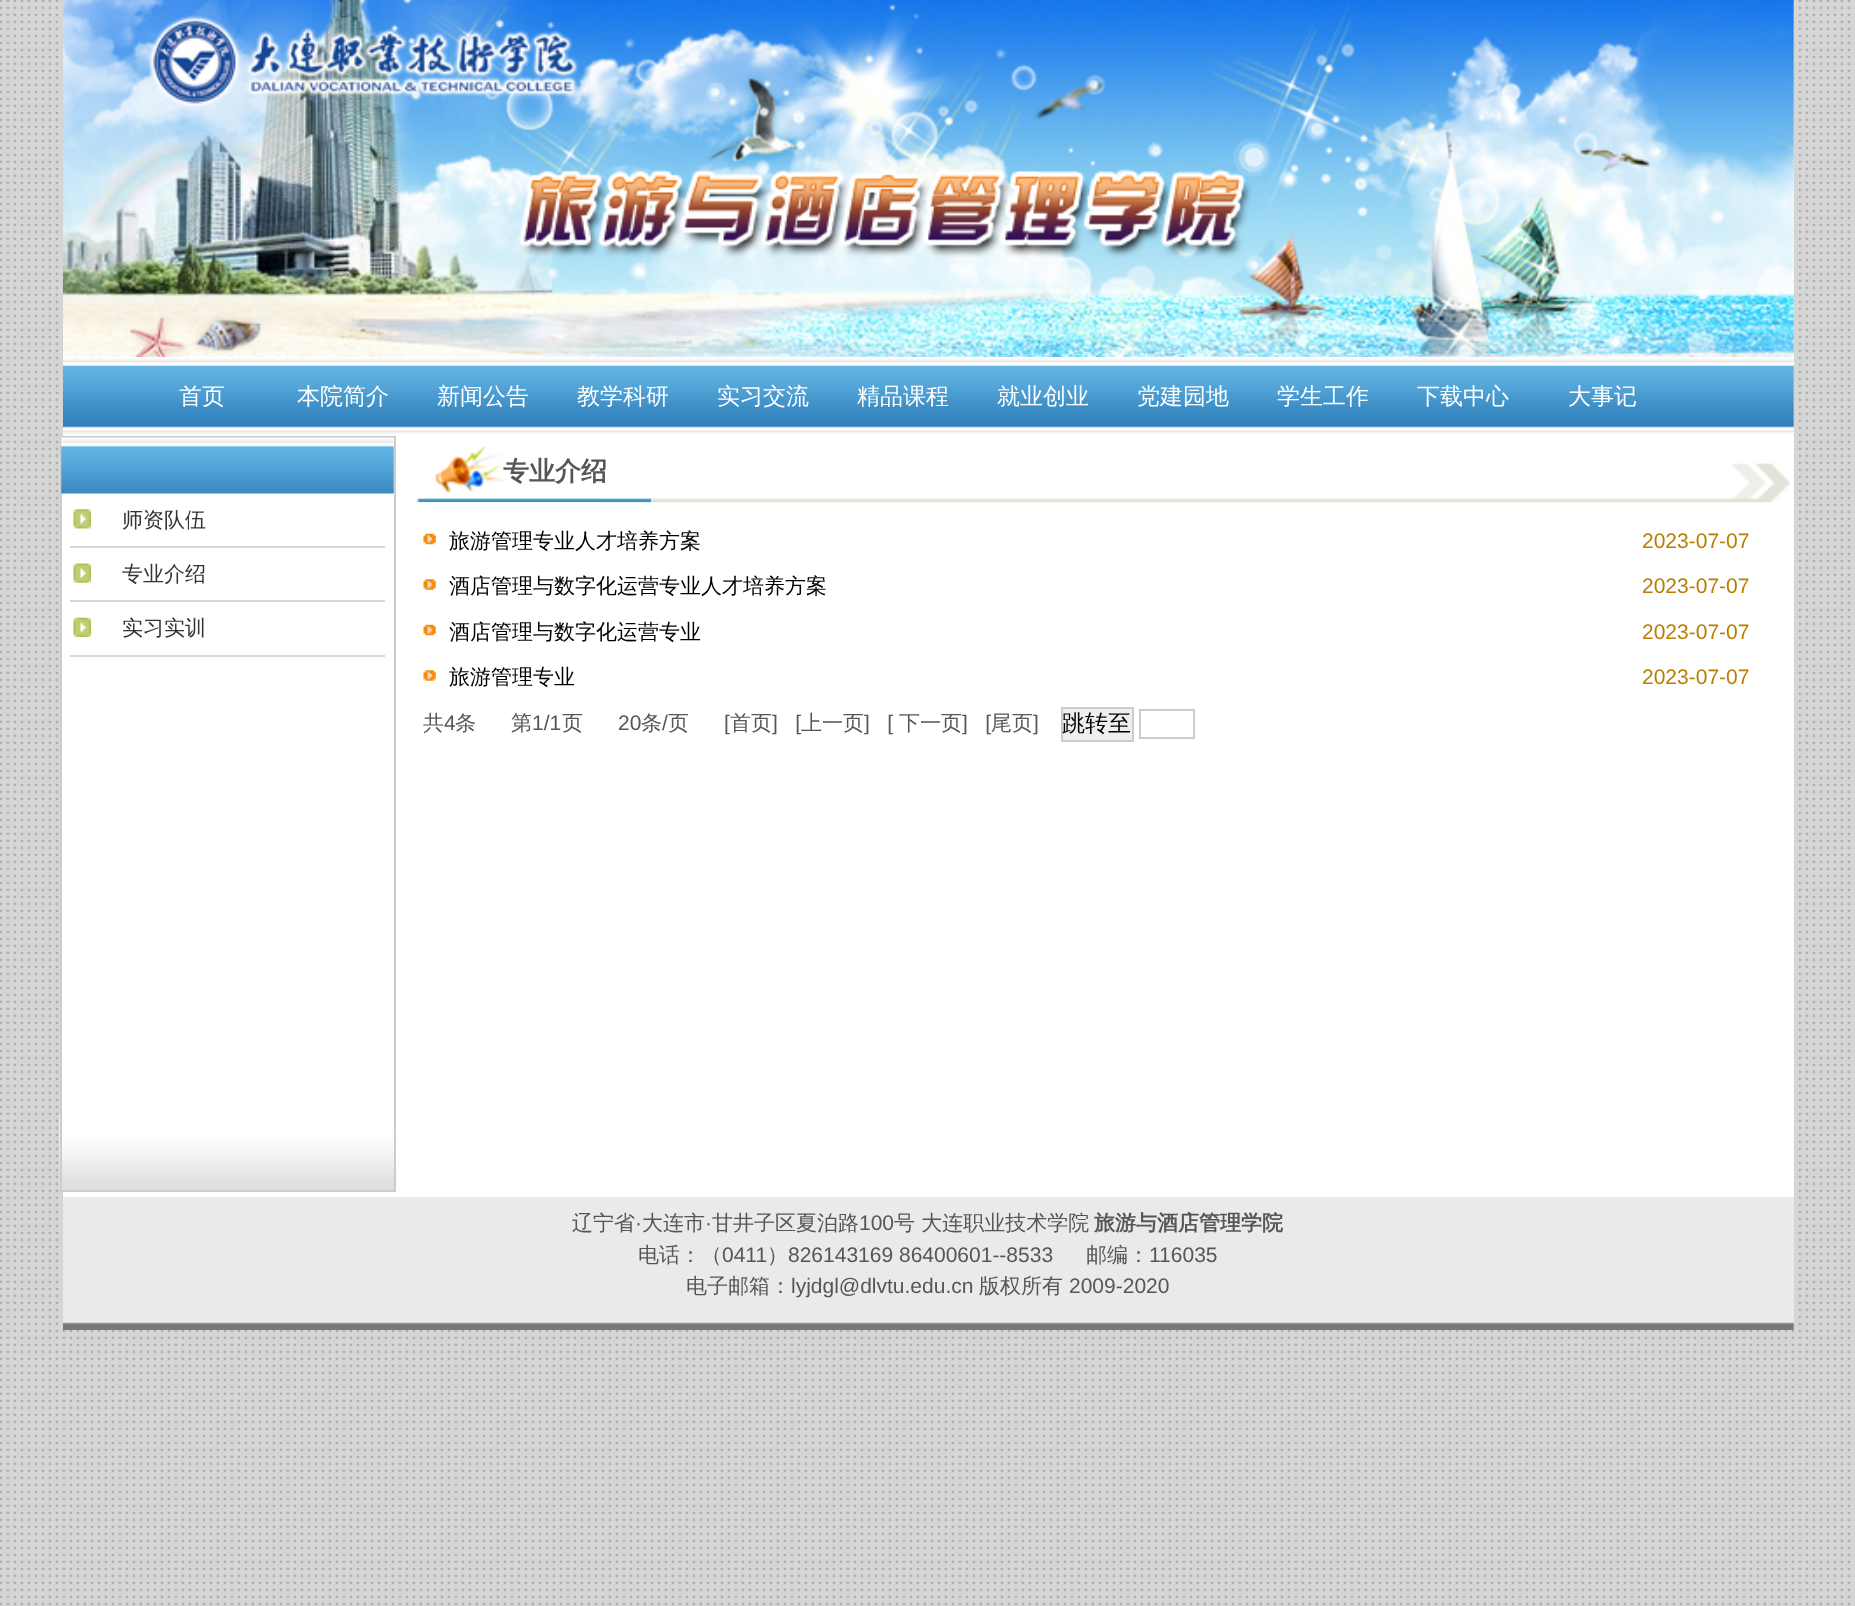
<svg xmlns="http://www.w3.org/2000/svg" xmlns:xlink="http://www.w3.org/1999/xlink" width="1855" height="1606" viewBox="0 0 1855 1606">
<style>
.cls-1{font:500 23px WenQuanYi Zen Hei;fill:#ffffff}
.cls-2{font:500 21px WenQuanYi Zen Hei;fill:#333333}
.cls-3{font:bold 26px WenQuanYi Zen Hei;fill:#565656}
.cls-4{font:500 21px WenQuanYi Zen Hei;fill:#000000}
.cls-5{font:21px Liberation Sans;fill:#b87e00}
.cls-6{font:500 21px WenQuanYi Zen Hei;fill:#565656}
.cls-7{font:21px Liberation Sans;fill:#565656}
.cls-8{font:500 23px WenQuanYi Zen Hei;fill:#000000}
.cls-9{font:bold 21px WenQuanYi Zen Hei;fill:#565656}
</style>
<rect width="100%" height="100%" fill="#ffffff"/>
<image xlink:href="image0.png" x="0" y="0" width="1855" height="1606"/>
<rect fill="#ffffff" x="63" y="0" width="1731" height="1197"/>
<image xlink:href="image1.png" x="63" y="0" width="1731" height="357"/>
<image xlink:href="image2.png" x="63" y="358" width="1731" height="76"/>
<rect fill="#ffffff" x="62" y="438" width="1" height="677"/>
<image xlink:href="image3.png" x="59" y="1114" width="335" height="76"/>
<rect fill="none" stroke="#cccccc" stroke-width="2" x="61" y="437" width="334" height="754"/>
<image xlink:href="image4.png" x="61" y="437" width="333" height="57"/>
<image xlink:href="image5.png" x="73" y="509" width="18" height="20"/>
<rect fill="#d7d7d7" x="70" y="546" width="315" height="2"/>
<image xlink:href="image6.png" x="73" y="563" width="18" height="20"/>
<rect fill="#d7d7d7" x="70" y="600" width="315" height="2"/>
<image xlink:href="image7.png" x="73" y="617" width="18" height="20"/>
<rect fill="#d7d7d7" x="70" y="655" width="315" height="2"/>
<image xlink:href="image8.png" x="605" y="463" width="1186" height="40"/>
<image xlink:href="image9.png" x="416" y="446" width="235" height="57"/>
<image xlink:href="image10.png" x="423" y="533" width="13" height="12"/>
<image xlink:href="image11.png" x="423" y="579" width="13" height="11"/>
<image xlink:href="image10.png" x="423" y="624" width="13" height="12"/>
<image xlink:href="image11.png" x="423" y="670" width="13" height="11"/>
<rect fill="#efefef" stroke="#cccccc" stroke-width="2" x="1062" y="708" width="71" height="33"/>
<rect fill="none" stroke="#cccccc" stroke-width="2" x="1140" y="710" width="54" height="28"/>
<rect fill="#eaeaea" x="63" y="1197" width="1731" height="133"/>
<image xlink:href="image12.png" x="63" y="1322" width="1731" height="8"/>
<text class="cls-1" x="179" y="404">首页</text>
<text class="cls-1" x="297" y="404">本院简介</text>
<text class="cls-1" x="437" y="404">新闻公告</text>
<text class="cls-1" x="577" y="404">教学科研</text>
<text class="cls-1" x="717" y="404">实习交流</text>
<text class="cls-1" x="857" y="404">精品课程</text>
<text class="cls-1" x="997" y="404">就业创业</text>
<text class="cls-1" x="1137" y="404">党建园地</text>
<text class="cls-1" x="1277" y="404">学生工作</text>
<text class="cls-1" x="1417" y="404">下载中心</text>
<text class="cls-1" x="1568" y="404">大事记</text>
<text class="cls-2" x="122" y="527">师资队伍</text>
<text class="cls-2" x="122" y="581">专业介绍</text>
<text class="cls-2" x="122" y="635">实习实训</text>
<text class="cls-3" x="503" y="480">专业介绍</text>
<text class="cls-4" x="449" y="548">旅游管理专业人才培养方案</text>
<text class="cls-5" x="1642" y="548">2023-07-07</text>
<text class="cls-4" x="449" y="593">酒店管理与数字化运营专业人才培养方案</text>
<text class="cls-5" x="1642" y="593">2023-07-07</text>
<text class="cls-4" x="449" y="639">酒店管理与数字化运营专业</text>
<text class="cls-5" x="1642" y="639">2023-07-07</text>
<text class="cls-4" x="449" y="684">旅游管理专业</text>
<text class="cls-5" x="1642" y="684">2023-07-07</text>
<text class="cls-6" x="423" y="730">共</text>
<text class="cls-7" x="444" y="730">4</text>
<text class="cls-6" x="455" y="730">条</text>
<text class="cls-6" x="511" y="730">第</text>
<text class="cls-7" x="532" y="730">1/1</text>
<text class="cls-6" x="562" y="730">页</text>
<text class="cls-7" x="618" y="730">20</text>
<text class="cls-6" x="641" y="730">条</text>
<text class="cls-7" x="662" y="730">/</text>
<text class="cls-6" x="668" y="730">页</text>
<text class="cls-7" x="724" y="730">[</text>
<text class="cls-6" x="730" y="730">首页</text>
<text class="cls-7" xml:space="preserve" x="772" y="730">]   [</text>
<text class="cls-6" x="801" y="730">上一页</text>
<text class="cls-7" xml:space="preserve" x="864" y="730">]   [</text>
<text class="cls-6" x="899" y="730">下一页</text>
<text class="cls-7" xml:space="preserve" x="962" y="730">]   [</text>
<text class="cls-6" x="991" y="730">尾页</text>
<text class="cls-7" x="1033" y="730">]</text>
<text class="cls-8" x="1062" y="731">跳转至</text>
<text class="cls-6" x="572" y="1230">辽宁省</text>
<text class="cls-7" x="635" y="1230">·</text>
<text class="cls-6" x="642" y="1230">大连市</text>
<text class="cls-7" x="705" y="1230">·</text>
<text class="cls-6" x="712" y="1230">甘井子区夏泊路</text>
<text class="cls-7" x="859" y="1230">100</text>
<text class="cls-6" x="894" y="1230">号 大连职业技术学院</text>
<text class="cls-9" x="1094" y="1230">旅游与酒店管理学院</text>
<text class="cls-6" x="638" y="1262">电话：（</text>
<text class="cls-7" x="722" y="1262">0411</text>
<text class="cls-6" x="767" y="1262">）</text>
<text class="cls-7" x="788" y="1262">826143169 86400601--8533</text>
<text class="cls-6" x="1086" y="1262">邮编：</text>
<text class="cls-7" x="1149" y="1262">116035</text>
<text class="cls-6" x="686" y="1293">电子邮箱：</text>
<text class="cls-7" x="791" y="1293">lyjdgl@dlvtu.edu.cn</text>
<text class="cls-6" x="979" y="1293">版权所有</text>
<text class="cls-7" x="1069" y="1293">2009-2020</text>
</svg>
